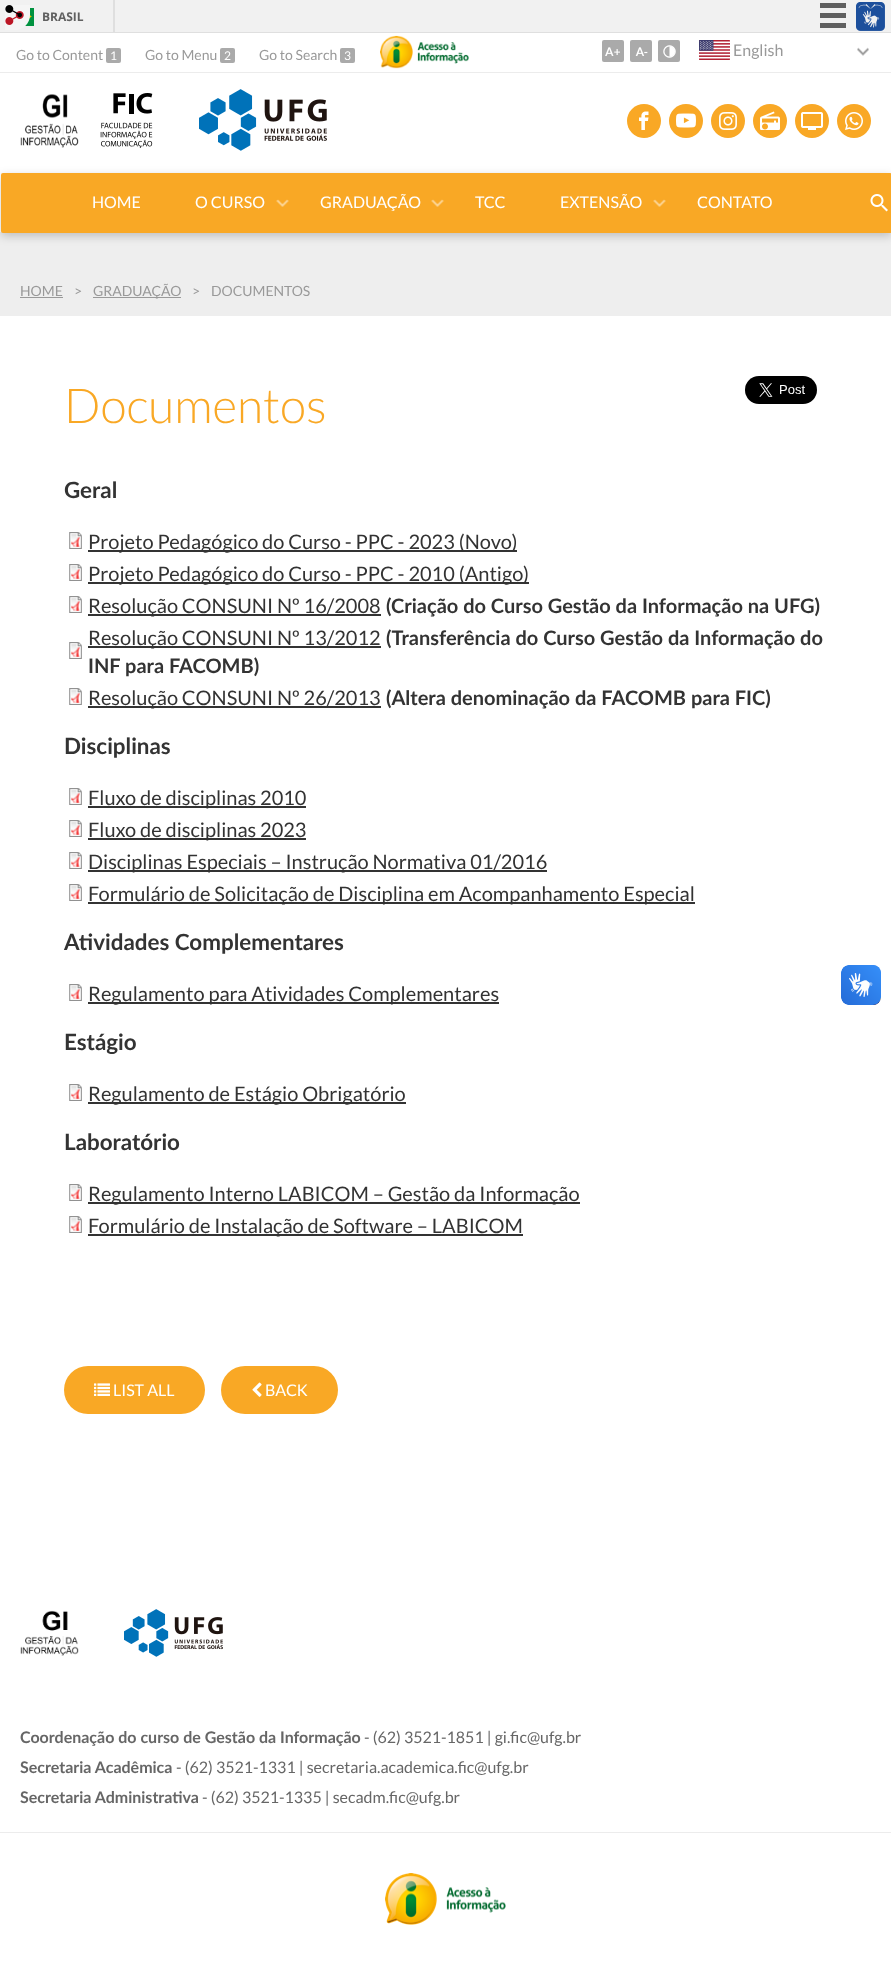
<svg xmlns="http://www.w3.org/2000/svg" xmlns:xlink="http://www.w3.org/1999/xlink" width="891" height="1969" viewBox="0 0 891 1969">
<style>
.cls-1{font:bold 12px Open Sans;fill:#606060}
.cls-2{font:14px Lato;fill:#999999}
.cls-3{font:12px Lato;fill:#ffffff}
.cls-4{font:16px Lato;fill:#999999}
.cls-5{font:16px Lato;fill:#ffffff}
.cls-6{font:300 48px Lato;fill:#f9a825}
.cls-7{font:bold 22.4px Lato;fill:#333333}
.cls-8{font:20px Lato;fill:#333333}
.cls-9{font:bold 20px Lato;fill:#333333}
.cls-10{font:bold 16px Lato;fill:#666666}
.cls-11{font:16px Lato;fill:#666666}
</style>
<rect width="100%" height="100%" fill="#f1f1f1"/>
<image xlink:href="image1.png" x="25" y="8" width="9" height="18"/>
<image xlink:href="image0.png" x="5" y="5" width="25" height="25"/>
<rect fill="#dfdfdf" x="0" y="32" width="891" height="1"/>
<rect fill="#dfdfdf" x="113" y="0" width="2" height="32"/>
<rect fill="#606060" x="820" y="3" width="26" height="5"/>
<rect fill="#606060" x="820" y="13" width="26" height="5"/>
<rect fill="#606060" x="820" y="23" width="26" height="5"/>
<image xlink:href="image2.png" x="856" y="2" width="29" height="29"/>
<rect fill="#ffffff" x="0" y="33" width="891" height="39"/>
<rect fill="#ececec" x="0" y="72" width="891" height="1"/>
<rect fill="#aaaaaa" x="106" y="48" width="15" height="15" rx="2"/>
<rect fill="#aaaaaa" x="220" y="48" width="15" height="15" rx="2"/>
<rect fill="#aaaaaa" x="340" y="48" width="15" height="15" rx="2"/>
<image xlink:href="image3.png" x="380" y="35" width="89" height="34"/>
<rect fill="#aaaaaa" x="602" y="40" width="22" height="22" rx="2"/>
<image xlink:href="image4.png" x="605" y="47" width="15" height="9"/>
<rect fill="#aaaaaa" x="630" y="40" width="22" height="22" rx="2"/>
<image xlink:href="image5.png" x="635" y="47" width="13" height="9"/>
<rect fill="#aaaaaa" x="658" y="40" width="22" height="22" rx="2"/>
<image xlink:href="image6.png" x="663" y="45" width="13" height="13"/>
<image xlink:href="image7.png" x="857" y="47" width="12" height="9"/>
<image xlink:href="image8.png" x="699" y="40" width="31" height="20"/>
<rect fill="#ffffff" x="0" y="73" width="891" height="159"/>
<image xlink:href="image9.png" x="20" y="94" width="59" height="54"/>
<image xlink:href="image10.png" x="100" y="93" width="53" height="55"/>
<image xlink:href="image11.png" x="199" y="89" width="128" height="62"/>
<circle fill="#f9a825" cx="644" cy="121" r="17"/>
<image xlink:href="image12.png" x="639" y="111" width="10" height="19"/>
<circle fill="#f9a825" cx="686" cy="121" r="17"/>
<image xlink:href="image13.png" x="676" y="113" width="20" height="15"/>
<circle fill="#f9a825" cx="728" cy="121" r="17"/>
<image xlink:href="image14.png" x="719" y="112" width="18" height="18"/>
<circle fill="#f9a825" cx="770" cy="121" r="17"/>
<image xlink:href="image15.png" x="760" y="111" width="20" height="19"/>
<circle fill="#f9a825" cx="812" cy="121" r="17"/>
<image xlink:href="image16.png" x="801" y="112" width="22" height="18"/>
<circle fill="#f9a825" cx="854" cy="121" r="17"/>
<image xlink:href="image17.png" x="845" y="112" width="18" height="18"/>
<rect fill="#eeeeee" x="0" y="232" width="891" height="84"/>
<rect fill="#000000" fill-opacity="0.2" filter="blur(5px)" x="1" y="176" width="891" height="60" rx="2"/>
<rect fill="#f9a825" x="1" y="173" width="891" height="60" rx="2"/>
<image xlink:href="image18.png" x="276" y="199" width="13" height="8"/>
<image xlink:href="image18.png" x="431" y="199" width="13" height="8"/>
<image xlink:href="image18.png" x="653" y="199" width="13" height="8"/>
<image xlink:href="image19.png" x="870" y="194" width="18" height="18"/>
<rect fill="#999999" x="20" y="297" width="43" height="1"/>
<rect fill="#999999" x="93" y="297" width="88" height="1"/>
<rect fill="#ffffff" x="0" y="316" width="891" height="1653"/>
<image xlink:href="image20.png" x="745" y="376" width="72" height="28"/>
<image xlink:href="image21.png" x="69" y="532" width="13" height="17"/>
<rect fill="#333333" x="88" y="550" width="429" height="2"/>
<image xlink:href="image21.png" x="69" y="564" width="13" height="17"/>
<rect fill="#333333" x="88" y="582" width="441" height="2"/>
<image xlink:href="image21.png" x="69" y="596" width="13" height="17"/>
<rect fill="#333333" x="88" y="614" width="293" height="2"/>
<image xlink:href="image21.png" x="69" y="642" width="13" height="17"/>
<rect fill="#333333" x="88" y="646" width="293" height="2"/>
<image xlink:href="image21.png" x="69" y="688" width="13" height="17"/>
<rect fill="#333333" x="88" y="706" width="293" height="2"/>
<image xlink:href="image21.png" x="69" y="788" width="13" height="17"/>
<rect fill="#333333" x="88" y="806" width="218" height="2"/>
<image xlink:href="image21.png" x="69" y="820" width="13" height="17"/>
<rect fill="#333333" x="88" y="838" width="218" height="2"/>
<image xlink:href="image21.png" x="69" y="852" width="13" height="17"/>
<rect fill="#333333" x="88" y="870" width="459" height="2"/>
<image xlink:href="image21.png" x="69" y="884" width="13" height="17"/>
<rect fill="#333333" x="88" y="902" width="607" height="2"/>
<image xlink:href="image21.png" x="69" y="984" width="13" height="17"/>
<rect fill="#333333" x="88" y="1002" width="411" height="2"/>
<image xlink:href="image21.png" x="69" y="1084" width="13" height="17"/>
<rect fill="#333333" x="88" y="1102" width="318" height="2"/>
<image xlink:href="image21.png" x="69" y="1184" width="13" height="17"/>
<rect fill="#333333" x="88" y="1202" width="492" height="2"/>
<image xlink:href="image21.png" x="69" y="1216" width="13" height="17"/>
<rect fill="#333333" x="88" y="1234" width="435" height="2"/>
<rect fill="#f9a825" x="64" y="1366" width="141" height="48" rx="24"/>
<image xlink:href="image22.png" x="94" y="1383" width="16" height="13"/>
<rect fill="#f9a825" x="221" y="1366" width="117" height="48" rx="24"/>
<image xlink:href="image23.png" x="252" y="1382" width="10" height="15"/>
<image xlink:href="image24.png" x="841" y="965" width="40" height="40"/>
<image xlink:href="image25.png" x="841" y="965" width="40" height="40"/>
<image xlink:href="image26.png" x="20" y="1610" width="59" height="46"/>
<image xlink:href="image27.png" x="124" y="1609" width="99" height="48"/>
<rect fill="#ececec" x="0" y="1832" width="891" height="1"/>
<image xlink:href="image28.png" x="385" y="1873" width="121" height="52"/>
<text class="cls-1" x="42" y="21">BRASIL</text>
<text class="cls-2" x="16" y="60">Go to Content</text>
<text class="cls-3" x="110" y="60">1</text>
<text class="cls-2" x="145" y="60">Go to Menu</text>
<text class="cls-3" x="224" y="60">2</text>
<text class="cls-2" x="259" y="60">Go to Search</text>
<text class="cls-3" x="344" y="60">3</text>
<text class="cls-4" x="733" y="56">English</text>
<text class="cls-5" x="92" y="208">HOME</text>
<text class="cls-5" x="195" y="208">O CURSO</text>
<text class="cls-5" x="320" y="208">GRADUAÇÃO</text>
<text class="cls-5" x="475" y="208">TCC</text>
<text class="cls-5" x="560" y="208">EXTENSÃO</text>
<text class="cls-5" x="697" y="208">CONTATO</text>
<text class="cls-2" x="20" y="296">HOME</text>
<text class="cls-2" x="74" y="296">&gt;</text>
<text class="cls-2" x="93" y="296">GRADUAÇÃO</text>
<text class="cls-2" x="192" y="296">&gt;</text>
<text class="cls-2" x="211" y="296">DOCUMENTOS</text>
<text class="cls-6" x="64" y="423">Documentos</text>
<text class="cls-7" x="64" y="498">Geral</text>
<text class="cls-8"><tspan x="88" y="549">Projeto Pedagógico do Curso - PPC - 2023 (Novo)</tspan><tspan x="88" y="581">Projeto Pedagógico do Curso - PPC - 2010 (Antigo)</tspan><tspan x="88" y="613">Resolução CONSUNI Nº 16/2008</tspan></text>
<text class="cls-9" x="386" y="613">(Criação do Curso Gestão da Informação na UFG)</text>
<text class="cls-8" x="88" y="645">Resolução CONSUNI Nº 13/2012</text>
<text class="cls-9" x="386" y="645">(Transferência do Curso Gestão da Informação do</text>
<text class="cls-9" x="88" y="673">INF para FACOMB)</text>
<text class="cls-8" x="88" y="705">Resolução CONSUNI Nº 26/2013</text>
<text class="cls-9" x="386" y="705">(Altera denominação da FACOMB para FIC)</text>
<text class="cls-7" x="64" y="754">Disciplinas</text>
<text class="cls-8"><tspan x="88" y="805">Fluxo de disciplinas 2010</tspan><tspan x="88" y="837">Fluxo de disciplinas 2023</tspan><tspan x="88" y="869">Disciplinas Especiais – Instrução Normativa 01/2016</tspan><tspan x="88" y="901">Formulário de Solicitação de Disciplina em Acompanhamento Especial</tspan></text>
<text class="cls-7" x="64" y="950">Atividades Complementares</text>
<text class="cls-8" x="88" y="1001">Regulamento para Atividades Complementares</text>
<text class="cls-7" x="64" y="1050">Estágio</text>
<text class="cls-8" x="88" y="1101">Regulamento de Estágio Obrigatório</text>
<text class="cls-7" x="64" y="1150">Laboratório</text>
<text class="cls-8"><tspan x="88" y="1201">Regulamento Interno LABICOM – Gestão da Informação</tspan><tspan x="88" y="1233">Formulário de Instalação de Software – LABICOM</tspan></text>
<text class="cls-5" x="113" y="1396">LIST ALL</text>
<text class="cls-5" x="265" y="1396">BACK</text>
<text class="cls-10" x="20" y="1743">Coordenação do curso de Gestão da Informação</text>
<text class="cls-11" x="364" y="1743">- (62) 3521-1851 | gi.fic@ufg.br</text>
<text class="cls-10" x="20" y="1773">Secretaria Acadêmica</text>
<text class="cls-11" x="176" y="1773">- (62) 3521-1331 | secretaria.academica.fic@ufg.br</text>
<text class="cls-10" x="20" y="1803">Secretaria Administrativa</text>
<text class="cls-11" x="202" y="1803">- (62) 3521-1335 | secadm.fic@ufg.br</text>
</svg>
